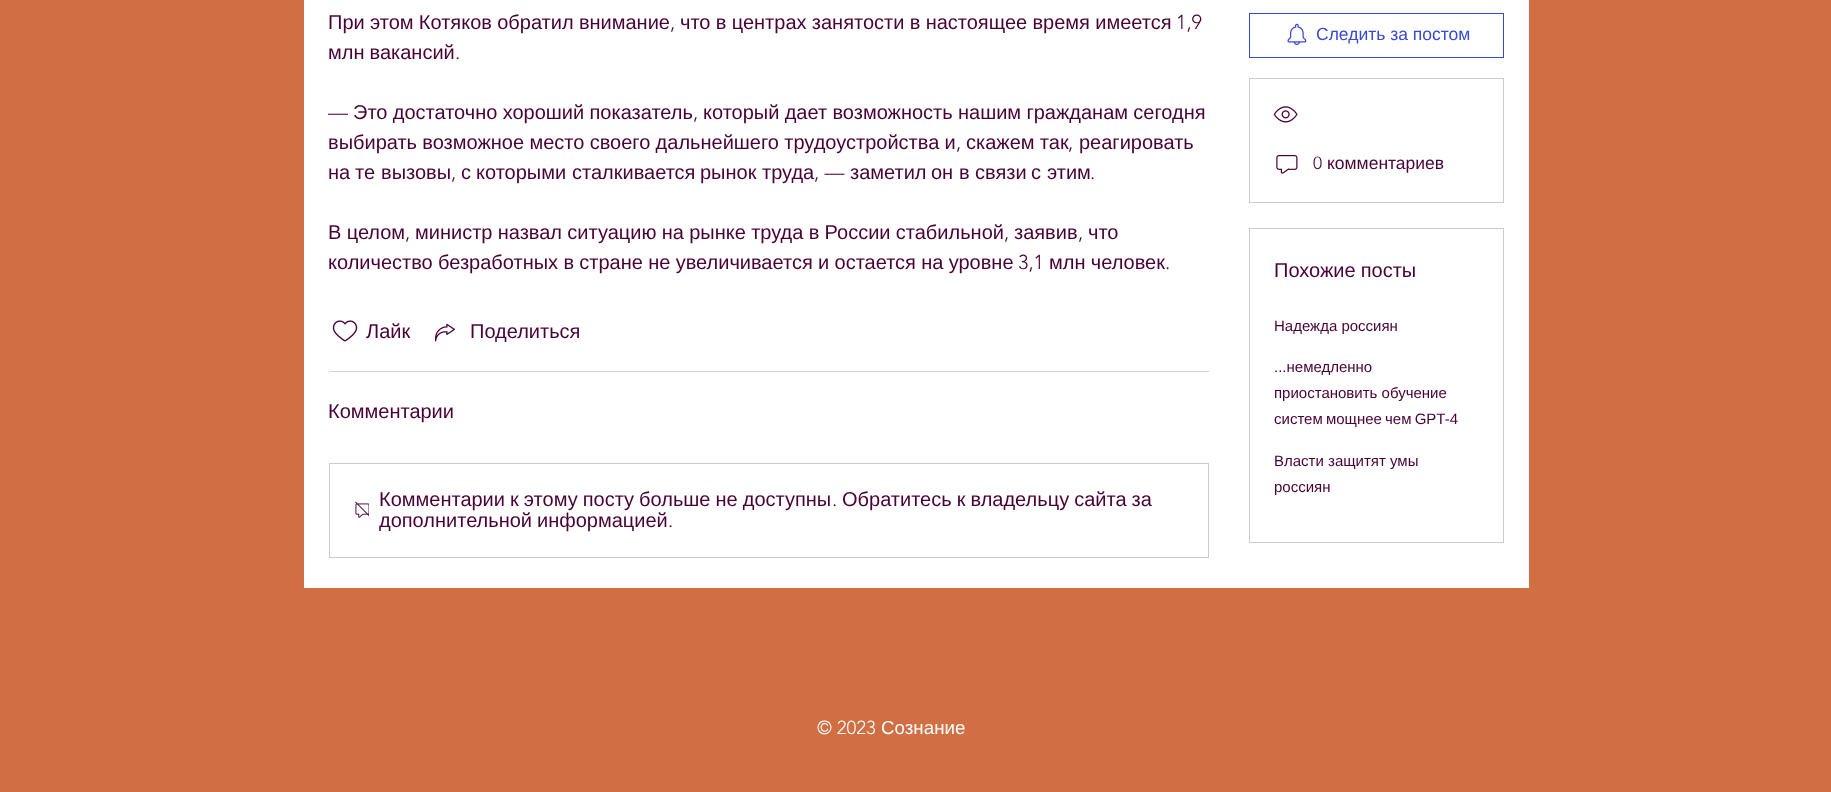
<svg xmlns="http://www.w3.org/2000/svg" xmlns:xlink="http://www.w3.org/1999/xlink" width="1831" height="792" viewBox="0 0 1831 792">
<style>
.cls-1{font:20px Liberation Sans;fill:#490036}
.cls-2{font:300 20px 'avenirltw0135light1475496';fill:#490036}
.cls-3{font:17.5px Liberation Sans;fill:#384ad3}
.cls-4{font:300 17.5px 'avenirltw0135light1475496';fill:#490036}
.cls-5{font:17.5px Liberation Sans;fill:#490036}
.cls-6{font:15px Liberation Sans;fill:#490036}
.cls-7{font:300 18.75px 'avenirltw0135light1475496';fill:#ffffff}
.cls-8{font:18.75px Liberation Sans;fill:#ffffff}
</style>
<rect width="100%" height="100%" fill="#d16e43"/>
<rect fill="#ffffff" x="304" y="0" width="1225" height="588"/>
<image xlink:href="image0.png" x="332" y="320" width="26" height="22"/>
<image xlink:href="image1.png" x="435" y="323" width="20" height="19"/>
<rect fill="#dbccd7" x="329" y="371" width="880" height="1"/>
<rect fill="none" stroke="#cccccc" x="329.5" y="463.5" width="879" height="94"/>
<image xlink:href="image2.png" x="355" y="501" width="14" height="17"/>
<rect fill="none" stroke="#384ad3" x="1249.5" y="13.5" width="254" height="44"/>
<image xlink:href="image3.png" x="1287" y="23" width="20" height="22"/>
<rect fill="none" stroke="#cccccc" x="1249.5" y="78.5" width="254" height="124"/>
<image xlink:href="image4.png" x="1273" y="106" width="25" height="17"/>
<image xlink:href="image5.png" x="1276" y="155" width="22" height="19"/>
<rect fill="none" stroke="#cccccc" x="1249.5" y="228.5" width="254" height="314"/>
<text class="cls-1" x="328" y="29" word-spacing="-0.25">При этом Котяков обратил внимание</text>
<text class="cls-2" x="670" y="29">,</text>
<text class="cls-1" x="680" y="29" word-spacing="-0.25">что в центрах занятости в настоящее время имеется</text>
<text class="cls-2" x="1176" y="29">1,9</text>
<text class="cls-1" x="328" y="59" word-spacing="-0.5">млн вакансий</text>
<text class="cls-2" x="455" y="59">.</text>
<text class="cls-2" x="328" y="119">—</text>
<text class="cls-1" x="353" y="119" word-spacing="-0.25">Это достаточно хороший показатель</text>
<text class="cls-1" x="703" y="119" word-spacing="-0.25">который дает возможность нашим гражданам сегодня</text>
<text class="cls-2" x="693" y="119">,</text>
<text class="cls-1" x="328" y="149" word-spacing="-0.25">выбирать возможное место своего дальнейшего трудоустройства и</text>
<text class="cls-2" x="956" y="149">,</text>
<text class="cls-1" x="966" y="149" word-spacing="-0.25">скажем так</text>
<text class="cls-2" x="1068" y="149">,</text>
<text class="cls-1" x="1079" y="149">реагировать</text>
<text class="cls-1" x="328" y="179">на</text>
<text class="cls-1" x="355" y="179">те</text>
<text class="cls-1" x="381" y="179">вызовы</text>
<text class="cls-2" x="451" y="179">,</text>
<text class="cls-1" x="461" y="179">с</text>
<text class="cls-1" x="476" y="179">которыми</text>
<text class="cls-1" x="572" y="179">сталкивается</text>
<text class="cls-1" x="700" y="179">рынок</text>
<text class="cls-1" x="762" y="179">труда</text>
<text class="cls-2" x="814" y="179">, —</text>
<text class="cls-1" x="850" y="179">заметил</text>
<text class="cls-1" x="931" y="179">он</text>
<text class="cls-1" x="959" y="179">в</text>
<text class="cls-1" x="975" y="179">связи</text>
<text class="cls-1" x="1031" y="179">с</text>
<text class="cls-1" x="1047" y="179">этим</text>
<text class="cls-2" x="1090" y="179">.</text>
<text class="cls-1" x="328" y="239" word-spacing="-0.25">В целом</text>
<text class="cls-2" x="405" y="239">,</text>
<text class="cls-1" x="415" y="239" word-spacing="-0.25">министр назвал ситуацию на рынке труда в России стабильной</text>
<text class="cls-2" x="1004" y="239">,</text>
<text class="cls-1" x="1014" y="239">заявив</text>
<text class="cls-2" x="1078" y="239">,</text>
<text class="cls-1" x="1088" y="239">что</text>
<text class="cls-1" x="328" y="269" word-spacing="-0.25">количество безработных в стране не увеличивается и остается на уровне</text>
<text class="cls-2" x="1018" y="269">3,1</text>
<text class="cls-1" x="1049" y="269" word-spacing="-0.25">млн человек</text>
<text class="cls-2" x="1165" y="269">.</text>
<text class="cls-1" x="366" y="338">Лайк</text>
<text class="cls-1" x="470" y="338">Поделиться</text>
<text class="cls-1" x="328" y="418">Комментарии</text>
<text class="cls-1" x="379" y="506" word-spacing="-0.5">Комментарии к этому посту больше не доступны</text>
<text class="cls-2" x="832" y="506">.</text>
<text class="cls-1" x="842" y="506" word-spacing="-0.5">Обратитесь к владельцу сайта за</text>
<text class="cls-1" x="379" y="527" word-spacing="-0.5">дополнительной информацией</text>
<text class="cls-2" x="668" y="527">.</text>
<text class="cls-3" x="1316" y="40">Следить за постом</text>
<text class="cls-4" x="1313" y="169">0</text>
<text class="cls-5" x="1327" y="169">комментариев</text>
<text class="cls-1" x="1274" y="277" word-spacing="-0.5">Похожие посты</text>
<text class="cls-6" x="1274" y="331">Надежда россиян</text>
<text class="cls-6"><tspan x="1274" y="372">...немедленно</tspan><tspan x="1274" y="398">приостановить обучение</tspan><tspan x="1274" y="424" word-spacing="-1">систем мощнее чем GPT-4</tspan></text>
<text class="cls-6"><tspan x="1274" y="466">Власти защитят умы</tspan><tspan x="1274" y="492">россиян</tspan></text>
<text class="cls-7" x="817" y="734">© 2023</text>
<text class="cls-8" x="881" y="734">Сознание</text>
</svg>
